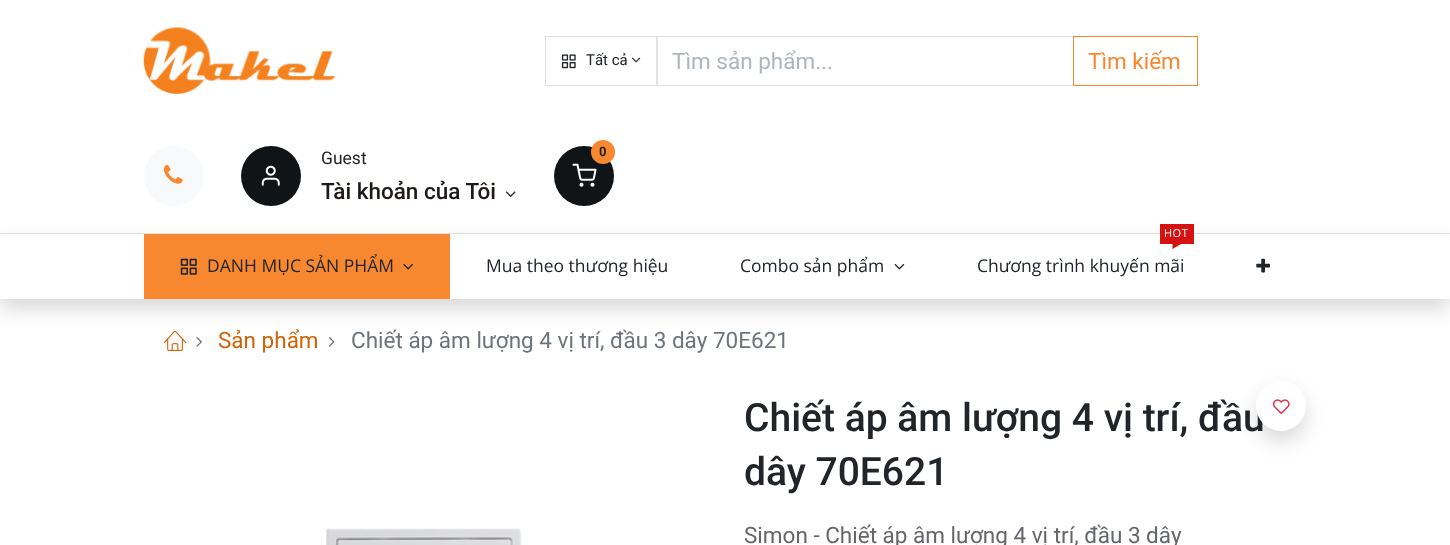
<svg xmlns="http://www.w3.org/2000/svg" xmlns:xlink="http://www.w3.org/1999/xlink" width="1450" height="545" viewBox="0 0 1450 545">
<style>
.cls-1{font:15px Roboto;fill:#212529}
.cls-2{font:22.5px Roboto;fill:#adb5bd}
.cls-3{font:22.5px Roboto;fill:#f8882f}
.cls-4{font:17.5px Roboto;fill:#212529}
.cls-5{font:500 22.5px Roboto;fill:#1d1916}
.cls-6{font:bold 13px Roboto;fill:#212529}
.cls-7{font:17.5px Open Sans;fill:#212529}
.cls-8{font:11px Open Sans;letter-spacing:0.5px;fill:#ffffff}
.cls-9{font:22.5px Roboto;fill:#d36207}
.cls-10{font:22.5px Roboto;fill:#6c757d}
.cls-11{font:500 39px Roboto;fill:#212529}
.cls-12{font:22.5px Roboto;fill:#646669}
</style>
<rect width="100%" height="100%" fill="#ffffff"/>
<rect fill="#e4e5e5" x="0" y="233" width="1450" height="1"/>
<image xlink:href="image0.png" x="143" y="27" width="192" height="67"/>
<rect fill="none" stroke="#dee2e6" x="656.5" y="36.5" width="417" height="49"/>
<rect fill="none" stroke="#dee2e6" x="545.5" y="36.5" width="112" height="49"/>
<image xlink:href="image1.png" x="561" y="54" width="15" height="15"/>
<image xlink:href="image2.png" x="631" y="57" width="10" height="6"/>
<rect fill="none" stroke="#f8882f" x="1073.5" y="36.5" width="124" height="49"/>
<circle fill="#f8f9fa" cx="174" cy="176" r="30"/>
<image xlink:href="image3.png" x="163" y="164" width="20" height="20"/>
<circle fill="#111417" cx="271" cy="176" r="30"/>
<image xlink:href="image4.png" x="261" y="165" width="19" height="21"/>
<image xlink:href="image5.png" x="505" y="191" width="11" height="6"/>
<circle fill="#111417" cx="584" cy="176" r="30"/>
<image xlink:href="image6.png" x="572" y="163" width="25" height="24"/>
<circle fill="#f8882f" cx="603" cy="152" r="12"/>
<image xlink:href="image11.png" x="163" y="330" width="24" height="21"/>
<image xlink:href="image12.png" x="196" y="337" width="6" height="10"/>
<image xlink:href="image13.png" x="328" y="337" width="7" height="10"/>
<rect fill="#000000" fill-opacity="0.15" filter="blur(10px)" x="0" y="244" width="1450" height="65"/>
<rect fill="#ffffff" x="0" y="234" width="1450" height="65"/>
<rect fill="#f8882f" x="144" y="234" width="306" height="65"/>
<image xlink:href="image7.png" x="180" y="258" width="17" height="17"/>
<image xlink:href="image8.png" x="403" y="263" width="10" height="7"/>
<image xlink:href="image9.png" x="894" y="263" width="11" height="7"/>
<rect fill="#d41212" x="1160" y="224" width="34" height="20"/>
<path fill="#d41212" d="M1172.5 244H1181L1172.5 249Z"/>
<image xlink:href="image10.png" x="1256" y="258" width="14" height="15"/>
<image xlink:href="image14.png" x="326" y="528" width="196" height="17"/>
<rect fill="#000000" fill-opacity="0.15" filter="blur(10px)" x="1256" y="391" width="50" height="50" rx="25"/>
<text class="cls-1" x="586" y="65">Tất cả</text>
<text class="cls-2" x="672" y="69">Tìm sản phẩm...</text>
<text class="cls-3" x="1088" y="69">Tìm kiếm</text>
<text class="cls-4" x="321" y="164">Guest</text>
<text class="cls-5" x="321" y="199">Tài khoản của Tôi</text>
<text class="cls-6" x="599" y="156">0</text>
<text class="cls-7" x="207" y="272">DANH MỤC SẢN PHẨM</text>
<text class="cls-7" x="486" y="272">Mua theo thương hiệu</text>
<text class="cls-7" x="740" y="272">Combo sản phẩm</text>
<text class="cls-8" x="1164" y="237">HOT</text>
<text class="cls-7" x="977" y="272">Chương trình khuyến mãi</text>
<text class="cls-9" x="218" y="348">Sản phẩm</text>
<text class="cls-10" x="351" y="348">Chiết áp âm lượng 4 vị trí, đầu 3 dây 70E621</text>
<text class="cls-11"><tspan x="744" y="431">Chiết áp âm lượng 4 vị trí, đầu</tspan><tspan x="744" y="485">dây 70E621</tspan></text>
<circle fill="#ffffff" cx="1281" cy="406" r="25"/>
<image xlink:href="image15.png" x="1272" y="399" width="18" height="16"/>
<text class="cls-12" x="744" y="543">Simon - Chiết áp âm lượng 4 vị trí, đầu 3 dây</text>
</svg>
